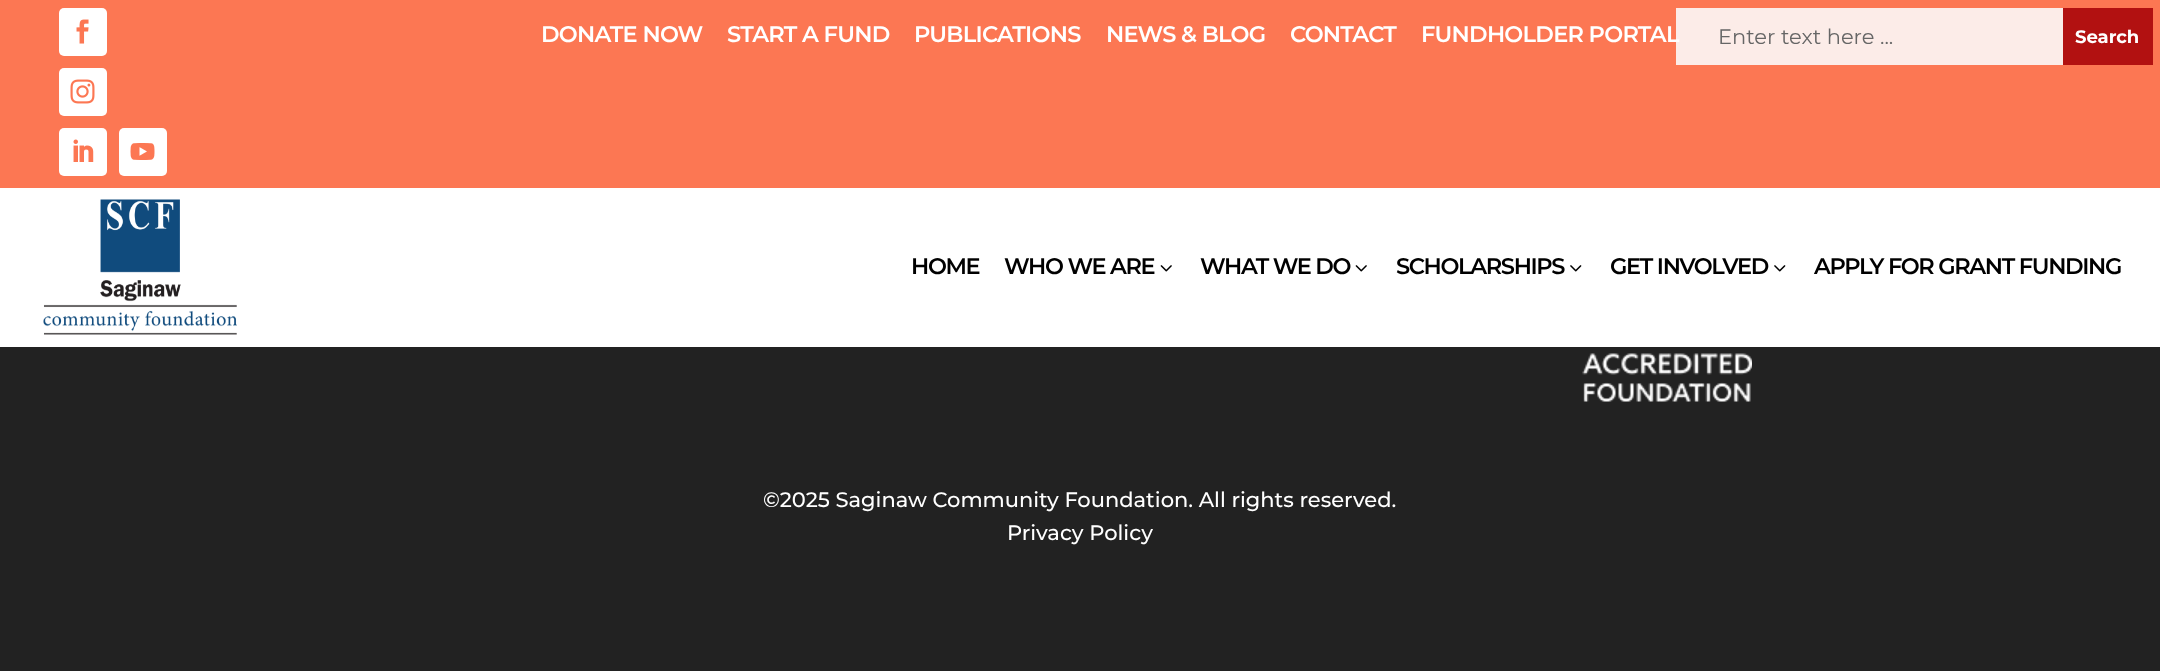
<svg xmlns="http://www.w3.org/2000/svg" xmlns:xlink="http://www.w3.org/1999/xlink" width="2160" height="671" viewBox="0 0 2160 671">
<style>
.cls-1{font:100 22.5px 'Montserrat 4';letter-spacing:-0.75px;fill:#ffffff}
.cls-2{font:100 21px 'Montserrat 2';fill:#666666}
.cls-3{font:100 18px 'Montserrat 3';fill:#ffffff}
.cls-4{font:100 22.5px 'Montserrat 4';letter-spacing:-1.35px;fill:#000000}
.cls-5{font:100 21px Montserrat;fill:#ffffff}
</style>
<rect width="100%" height="100%" fill="#222222"/>
<rect fill="#ffffff" x="0" y="188" width="2160" height="159"/>
<rect fill="#fc7753" x="0" y="0" width="2160" height="188"/>
<rect fill="#ffffff" x="59" y="8" width="48" height="48" rx="5"/>
<image xlink:href="image0.png" x="76" y="19" width="13" height="25"/>
<rect fill="#ffffff" x="59" y="68" width="48" height="48" rx="5"/>
<image xlink:href="image1.png" x="70" y="79" width="25" height="25"/>
<rect fill="#ffffff" x="59" y="128" width="48" height="48" rx="5"/>
<image xlink:href="image2.png" x="73" y="139" width="21" height="23"/>
<rect fill="#ffffff" x="119" y="128" width="48" height="48" rx="5"/>
<image xlink:href="image3.png" x="130" y="143" width="25" height="17"/>
<rect fill="#fcece8" x="1676" y="8" width="387" height="57"/>
<rect fill="#b21111" x="2063" y="8" width="90" height="57"/>
<image xlink:href="image4.png" x="43" y="199" width="194" height="136"/>
<image xlink:href="image5.png" x="1160" y="265" width="12" height="7"/>
<image xlink:href="image5.png" x="1355" y="265" width="12" height="7"/>
<image xlink:href="image6.png" x="1570" y="265" width="12" height="7"/>
<image xlink:href="image6.png" x="1774" y="265" width="12" height="7"/>
<image xlink:href="image7.png" x="1582" y="353" width="170" height="49"/>
<text class="cls-1" x="541" y="42">DONATE NOW</text>
<text class="cls-1" x="727" y="42">START A FUND</text>
<text class="cls-1" x="914" y="42">PUBLICATIONS</text>
<text class="cls-1" x="1106" y="42">NEWS &amp; BLOG</text>
<text class="cls-1" x="1290" y="42">CONTACT</text>
<text class="cls-1" x="1421" y="42">FUNDHOLDER PORTAL</text>
<text class="cls-2" x="1718" y="44">Enter text here ...</text>
<text class="cls-3" x="2075" y="43">Search</text>
<text class="cls-4" x="911" y="274">HOME</text>
<text class="cls-4" x="1004" y="274">WHO WE ARE</text>
<text class="cls-4" x="1200" y="274">WHAT WE DO</text>
<text class="cls-4" x="1396" y="274">SCHOLARSHIPS</text>
<text class="cls-4" x="1610" y="274">GET INVOLVED</text>
<text class="cls-4" x="1814" y="274">APPLY FOR GRANT FUNDING</text>
<text class="cls-5" x="763" y="507">©2025 Saginaw Community Foundation. All rights reserved.</text>
<text class="cls-5" x="1007" y="540">Privacy Policy</text>
</svg>
